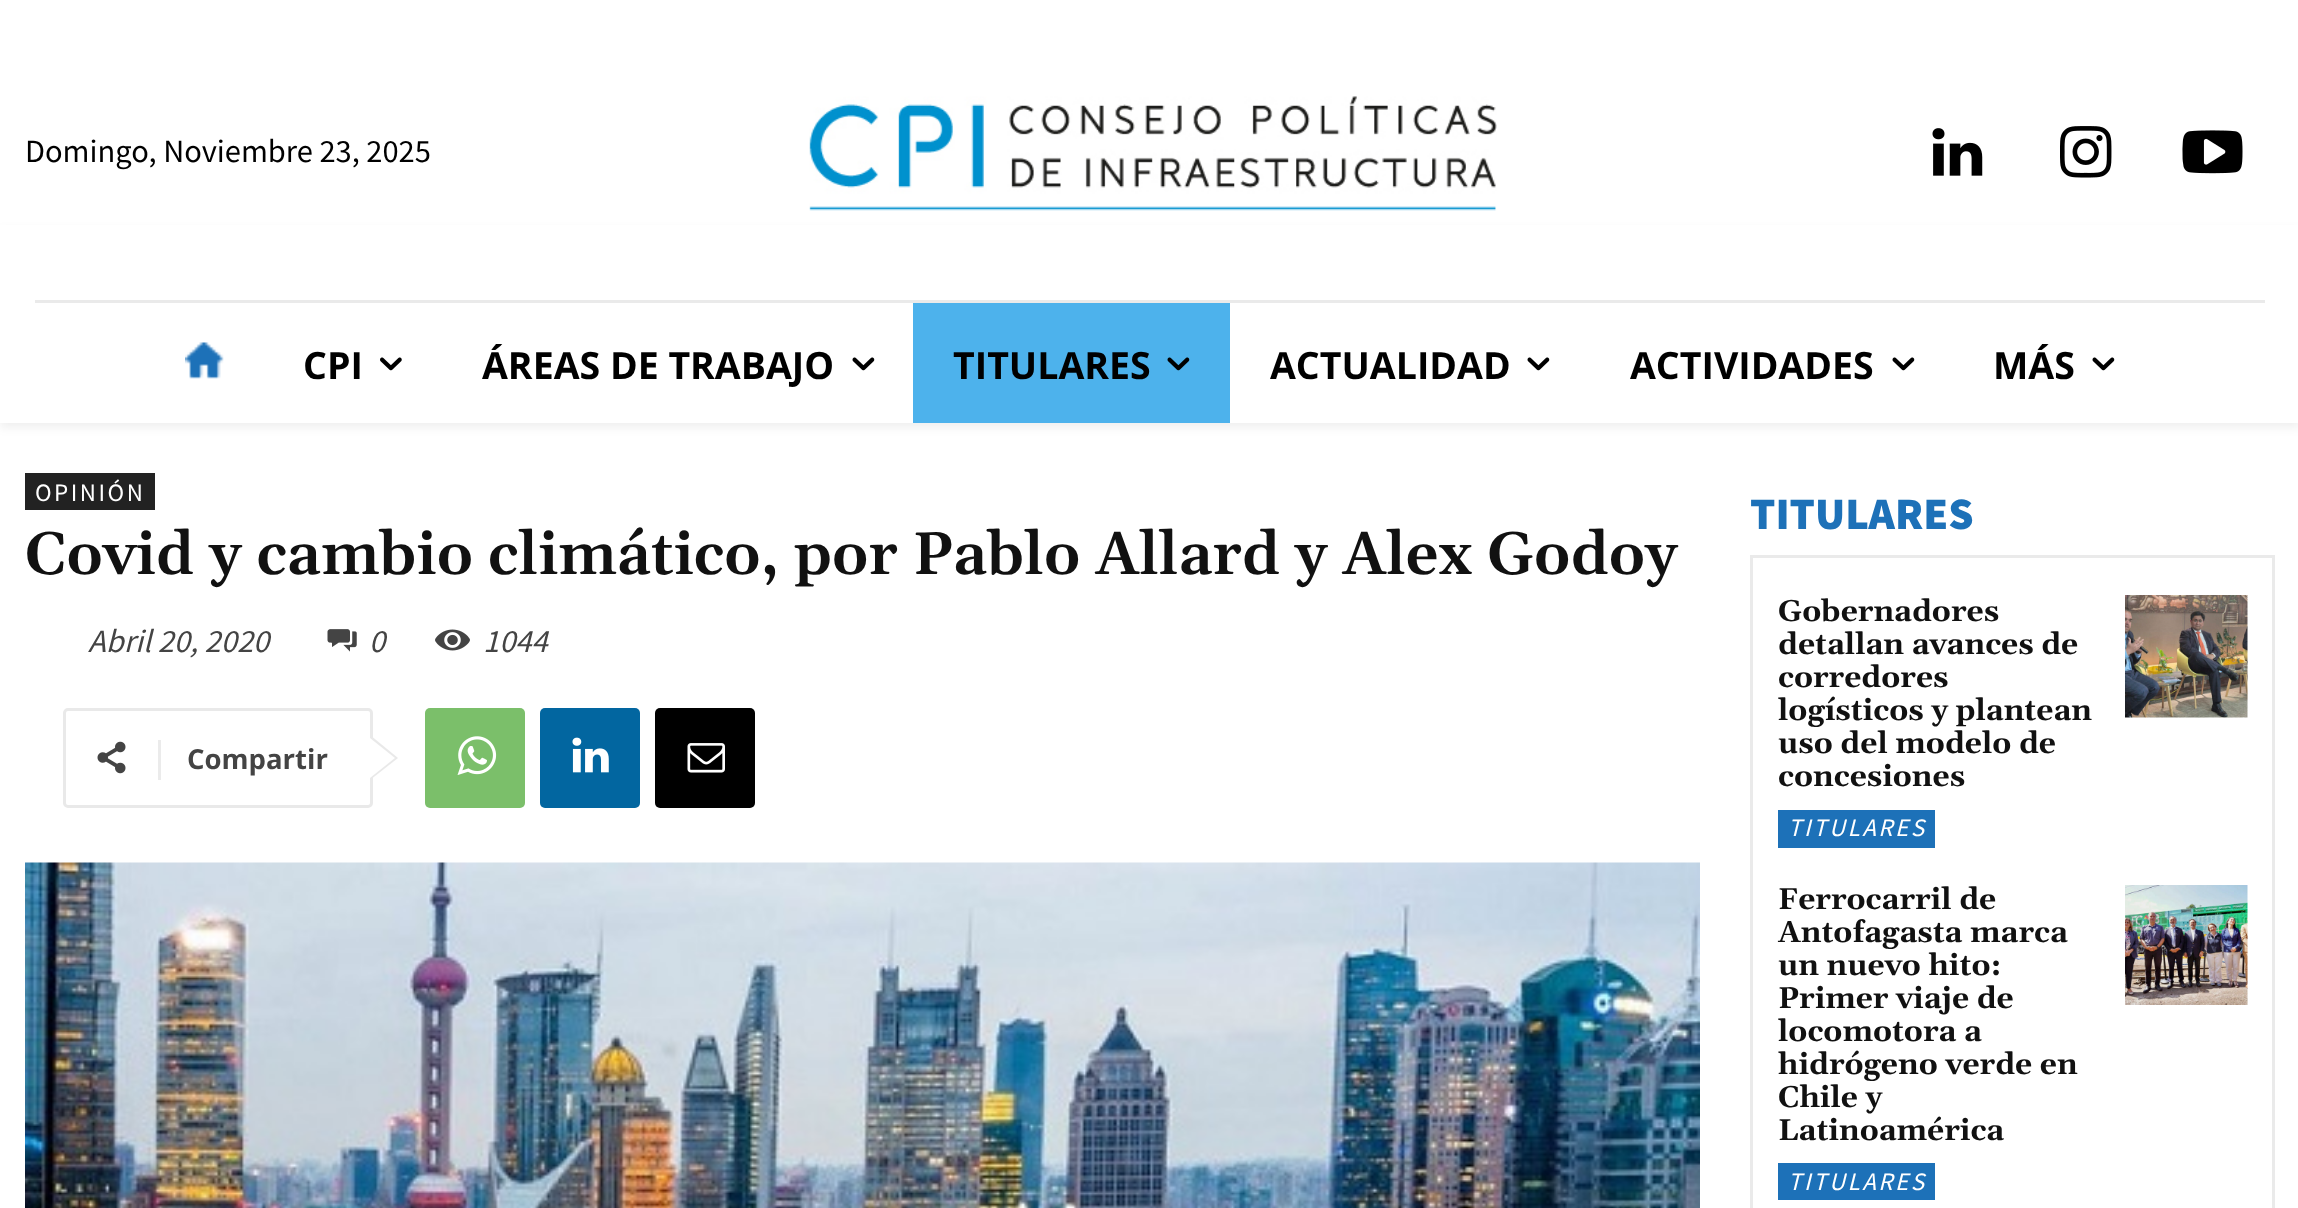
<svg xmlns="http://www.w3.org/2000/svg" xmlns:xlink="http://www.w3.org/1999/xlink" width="2298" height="1208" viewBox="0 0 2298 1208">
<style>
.cls-1{font:32.5px Source Sans Pro;fill:#000000}
.cls-2{font:bold 37.5px Open Sans;fill:#000000}
.cls-3{font:25px Source Sans Pro;letter-spacing:2.5px;fill:#ffffff}
.cls-4{font:600 60px Gelasio;fill:#111111}
.cls-5{font:italic 32.5px Source Sans Pro;fill:#444444}
.cls-6{font:bold 27.5px Open Sans;fill:#444444}
.cls-7{font:900 45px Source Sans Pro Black;fill:#1d71b8}
.cls-8{font:bold 30px Gelasio;fill:#111111}
.cls-9{font:italic 25px Source Sans Pro;letter-spacing:2.5px;fill:#ffffff}
</style>
<defs>
<clipPath id="clip1"><path d="M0 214H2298V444H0ZM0 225H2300V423H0Z" clip-rule="evenodd"/></clipPath>
</defs>
<rect width="100%" height="100%" fill="#ffffff"/>
<image xlink:href="image0.png" x="809" y="96" width="688" height="115"/>
<image xlink:href="image1.png" x="1932" y="128" width="51" height="48"/>
<image xlink:href="image2.png" x="2060" y="126" width="52" height="52"/>
<image xlink:href="image3.png" x="2182" y="130" width="61" height="44"/>
<rect fill="#eaeaea" x="35" y="300" width="2230" height="3"/>
<g clip-path="url(#clip1)">
<rect fill="#000000" fill-opacity="0.06" filter="blur(5px)" x="0" y="230" width="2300" height="198"/>
</g>
<image xlink:href="image4.png" x="185" y="342" width="39" height="37"/>
<image xlink:href="image5.png" x="380" y="357" width="22" height="14"/>
<image xlink:href="image6.png" x="852" y="357" width="23" height="14"/>
<rect fill="#4db2ec" x="913" y="303" width="317" height="120"/>
<image xlink:href="image7.png" x="1167" y="357" width="23" height="14"/>
<image xlink:href="image6.png" x="1527" y="357" width="23" height="14"/>
<image xlink:href="image6.png" x="1892" y="357" width="23" height="14"/>
<image xlink:href="image6.png" x="2092" y="357" width="23" height="14"/>
<rect fill="#222222" x="25" y="473" width="130" height="37"/>
<image xlink:href="image8.png" x="327" y="629" width="30" height="23"/>
<image xlink:href="image9.png" x="435" y="629" width="35" height="22"/>
<rect fill="none" stroke="#e9e9e9" stroke-width="3" x="64.5" y="709.5" width="307" height="97" rx="3.5"/>
<path fill="#e9e9e9" d="M370 780V735L398 758Z"/>
<image xlink:href="image10.png" x="97" y="741" width="29" height="33"/>
<rect fill="#ebebeb" x="158" y="740" width="3" height="40"/>
<path fill="#ffffff" d="M370 778V738L395 758Z"/>
<rect fill="#7bbf6a" x="425" y="708" width="100" height="100" rx="5"/>
<image xlink:href="image11.png" x="457" y="736" width="40" height="39"/>
<rect fill="#0266a0" x="540" y="708" width="100" height="100" rx="5"/>
<image xlink:href="image12.png" x="572" y="737" width="37" height="36"/>
<rect fill="#000000" x="655" y="708" width="100" height="100" rx="5"/>
<image xlink:href="image13.png" x="687" y="743" width="38" height="30"/>
<image xlink:href="image14.png" x="25" y="862" width="1675" height="346"/>
<rect fill="none" stroke="#eaeaea" stroke-width="3" x="1751.5" y="556.5" width="522" height="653"/>
<rect fill="#1d71b8" x="1778" y="810" width="157" height="38"/>
<image xlink:href="image15.png" x="2125" y="595" width="123" height="123"/>
<rect fill="#1d71b8" x="1778" y="1163" width="157" height="37"/>
<image xlink:href="image16.png" x="2125" y="885" width="123" height="120"/>
<text class="cls-1" x="25" y="162">Domingo, Noviembre 23, 2025</text>
<text class="cls-2" x="303" y="379">CPI</text>
<text class="cls-2" x="482" y="379">ÁREAS DE TRABAJO</text>
<text class="cls-2" x="953" y="379">TITULARES</text>
<text class="cls-2" x="1270" y="379">ACTUALIDAD</text>
<text class="cls-2" x="1630" y="379">ACTIVIDADES</text>
<text class="cls-2" x="1993" y="379">MÁS</text>
<text class="cls-3" x="35" y="501">OPINIÓN</text>
<text class="cls-4" x="25" y="574">Covid y cambio climático, por Pablo Allard y Alex Godoy</text>
<text class="cls-5" x="88" y="652">Abril 20, 2020</text>
<text class="cls-5" x="369" y="652">0</text>
<text class="cls-5" x="483" y="652">1044</text>
<text class="cls-6" x="187" y="769">Compartir</text>
<text class="cls-7" x="1750" y="529">TITULARES</text>
<text class="cls-8"><tspan x="1778" y="621">Gobernadores</tspan><tspan x="1778" y="654">detallan avances de</tspan><tspan x="1778" y="687">corredores</tspan><tspan x="1778" y="720">logísticos y plantean</tspan><tspan x="1778" y="753">uso del modelo de</tspan><tspan x="1778" y="786">concesiones</tspan></text>
<text class="cls-9" x="1788" y="836">TITULARES</text>
<text class="cls-8"><tspan x="1778" y="909">Ferrocarril de</tspan><tspan x="1778" y="942">Antofagasta marca</tspan><tspan x="1778" y="975">un nuevo hito:</tspan><tspan x="1778" y="1008">Primer viaje de</tspan><tspan x="1778" y="1041">locomotora a</tspan><tspan x="1778" y="1074">hidrógeno verde en</tspan><tspan x="1778" y="1107">Chile y</tspan><tspan x="1778" y="1140">Latinoamérica</tspan></text>
<text class="cls-9" x="1788" y="1190">TITULARES</text>
</svg>
